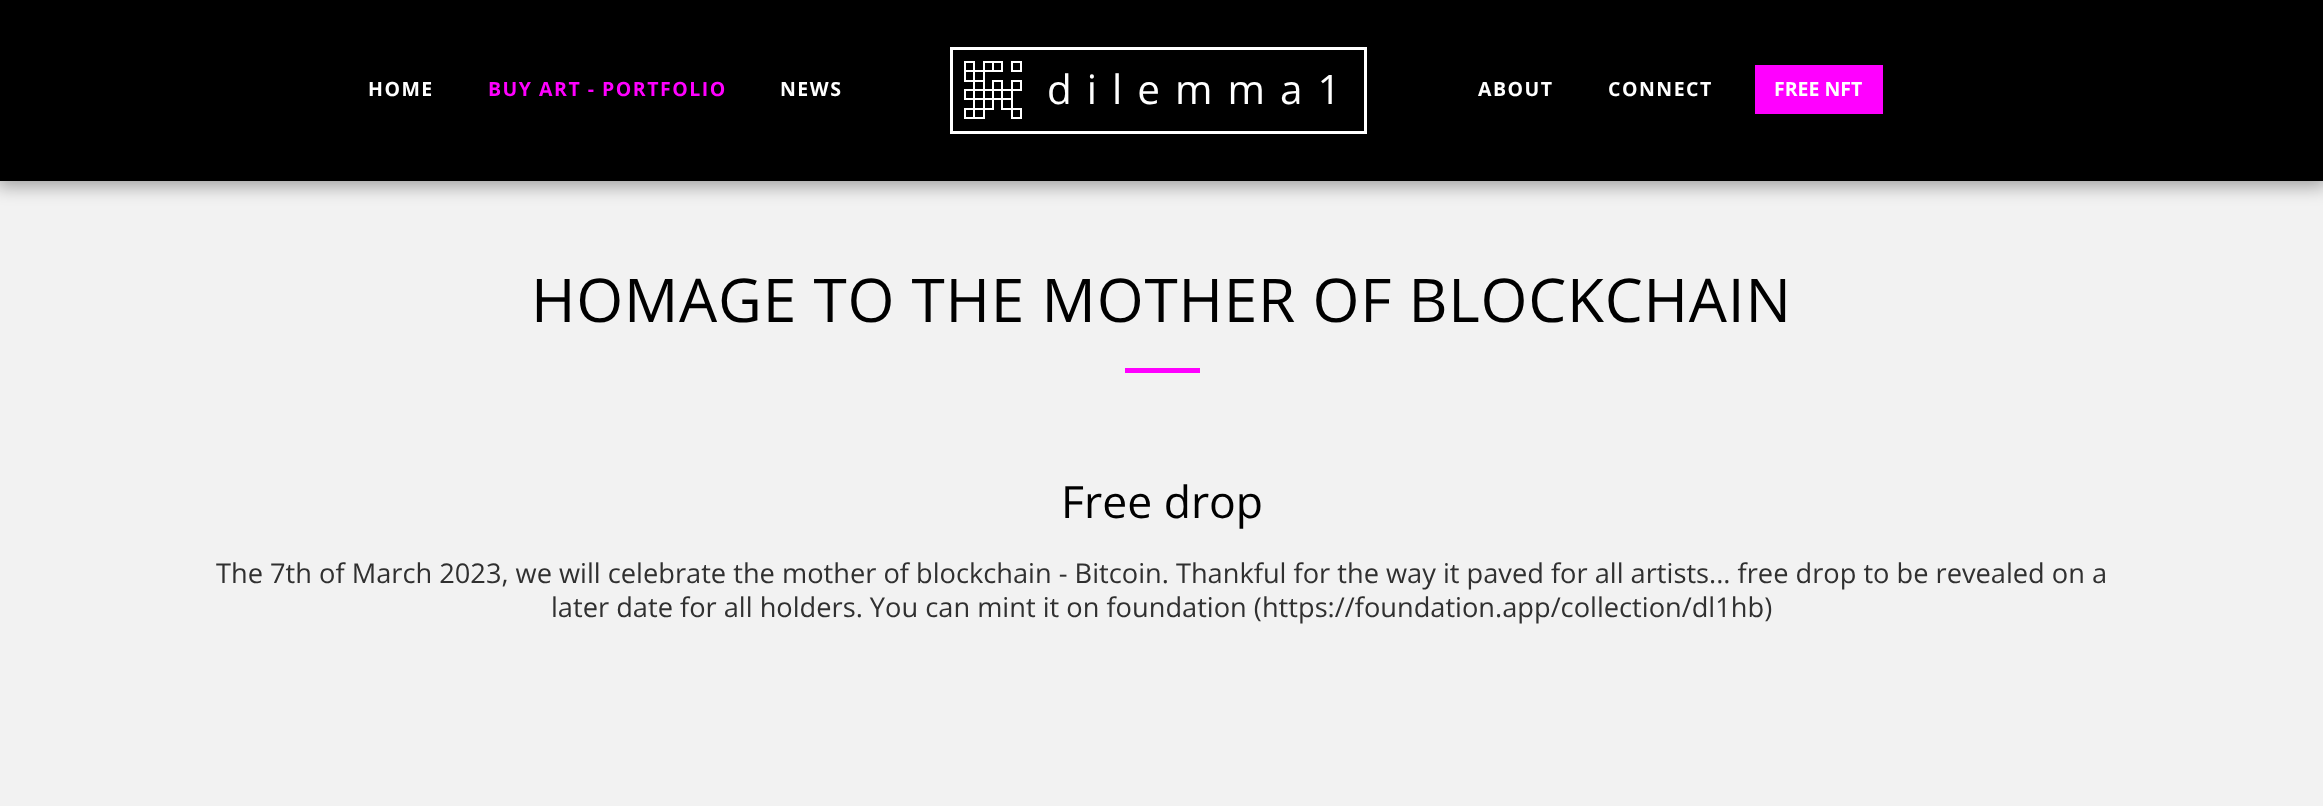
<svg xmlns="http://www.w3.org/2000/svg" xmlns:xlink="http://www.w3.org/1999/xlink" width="2323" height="806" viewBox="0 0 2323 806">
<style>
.cls-1{font:bold 19.5px Open Sans;letter-spacing:1.5px;fill:#ffffff}
.cls-2{font:bold 19.5px Open Sans;letter-spacing:1.5px;fill:#ff00ff}
.cls-3{font:40.5px Open Sans;letter-spacing:15px;fill:#ffffff}
.cls-4{font:bold 19.5px Open Sans;fill:#ffffff}
.cls-5{font:60.4px Open Sans;letter-spacing:0.75px;fill:#000000}
.cls-6{font:44.5px Open Sans;fill:#000000}
.cls-7{font:27.22px Open Sans;fill:#303030}
</style>
<rect width="100%" height="100%" fill="#f2f2f2"/>
<rect fill="#000000" fill-opacity="0.35" filter="blur(9px)" x="-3" y="0" width="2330" height="186"/>
<rect fill="#000000" x="0" y="0" width="2323" height="181"/>
<rect fill="none" stroke="#ffffff" stroke-width="3" x="951.5" y="48.5" width="414" height="84"/>
<image xlink:href="image0.png" x="964" y="61" width="58" height="58"/>
<rect fill="#ff00ff" x="1755" y="65" width="128" height="49"/>
<rect fill="#ff00ff" x="1125" y="368" width="75" height="5"/>
<text class="cls-1" x="368" y="96">HOME</text>
<text class="cls-2" x="488" y="96">BUY ART - PORTFOLIO</text>
<text class="cls-1" x="780" y="96">NEWS</text>
<text class="cls-3" x="1047" y="104">dilemma1</text>
<text class="cls-1" x="1478" y="96">ABOUT</text>
<text class="cls-1" x="1608" y="96">CONNECT</text>
<text class="cls-4" x="1774" y="96">FREE NFT</text>
<text class="cls-5" x="531" y="322">HOMAGE TO THE MOTHER OF BLOCKCHAIN</text>
<text class="cls-6" x="1061" y="518">Free drop</text>
<text class="cls-7" x="216" y="583">The 7th of March 2023, we will celebrate the mother of blockchain - Bitcoin. Thankful for the way it paved for all artists... free drop to be revealed on a</text>
<text class="cls-7" x="551" y="617">later date for all holders. You can mint it on foundation (https://foundation.app/collection/dl1hb)</text>
</svg>
